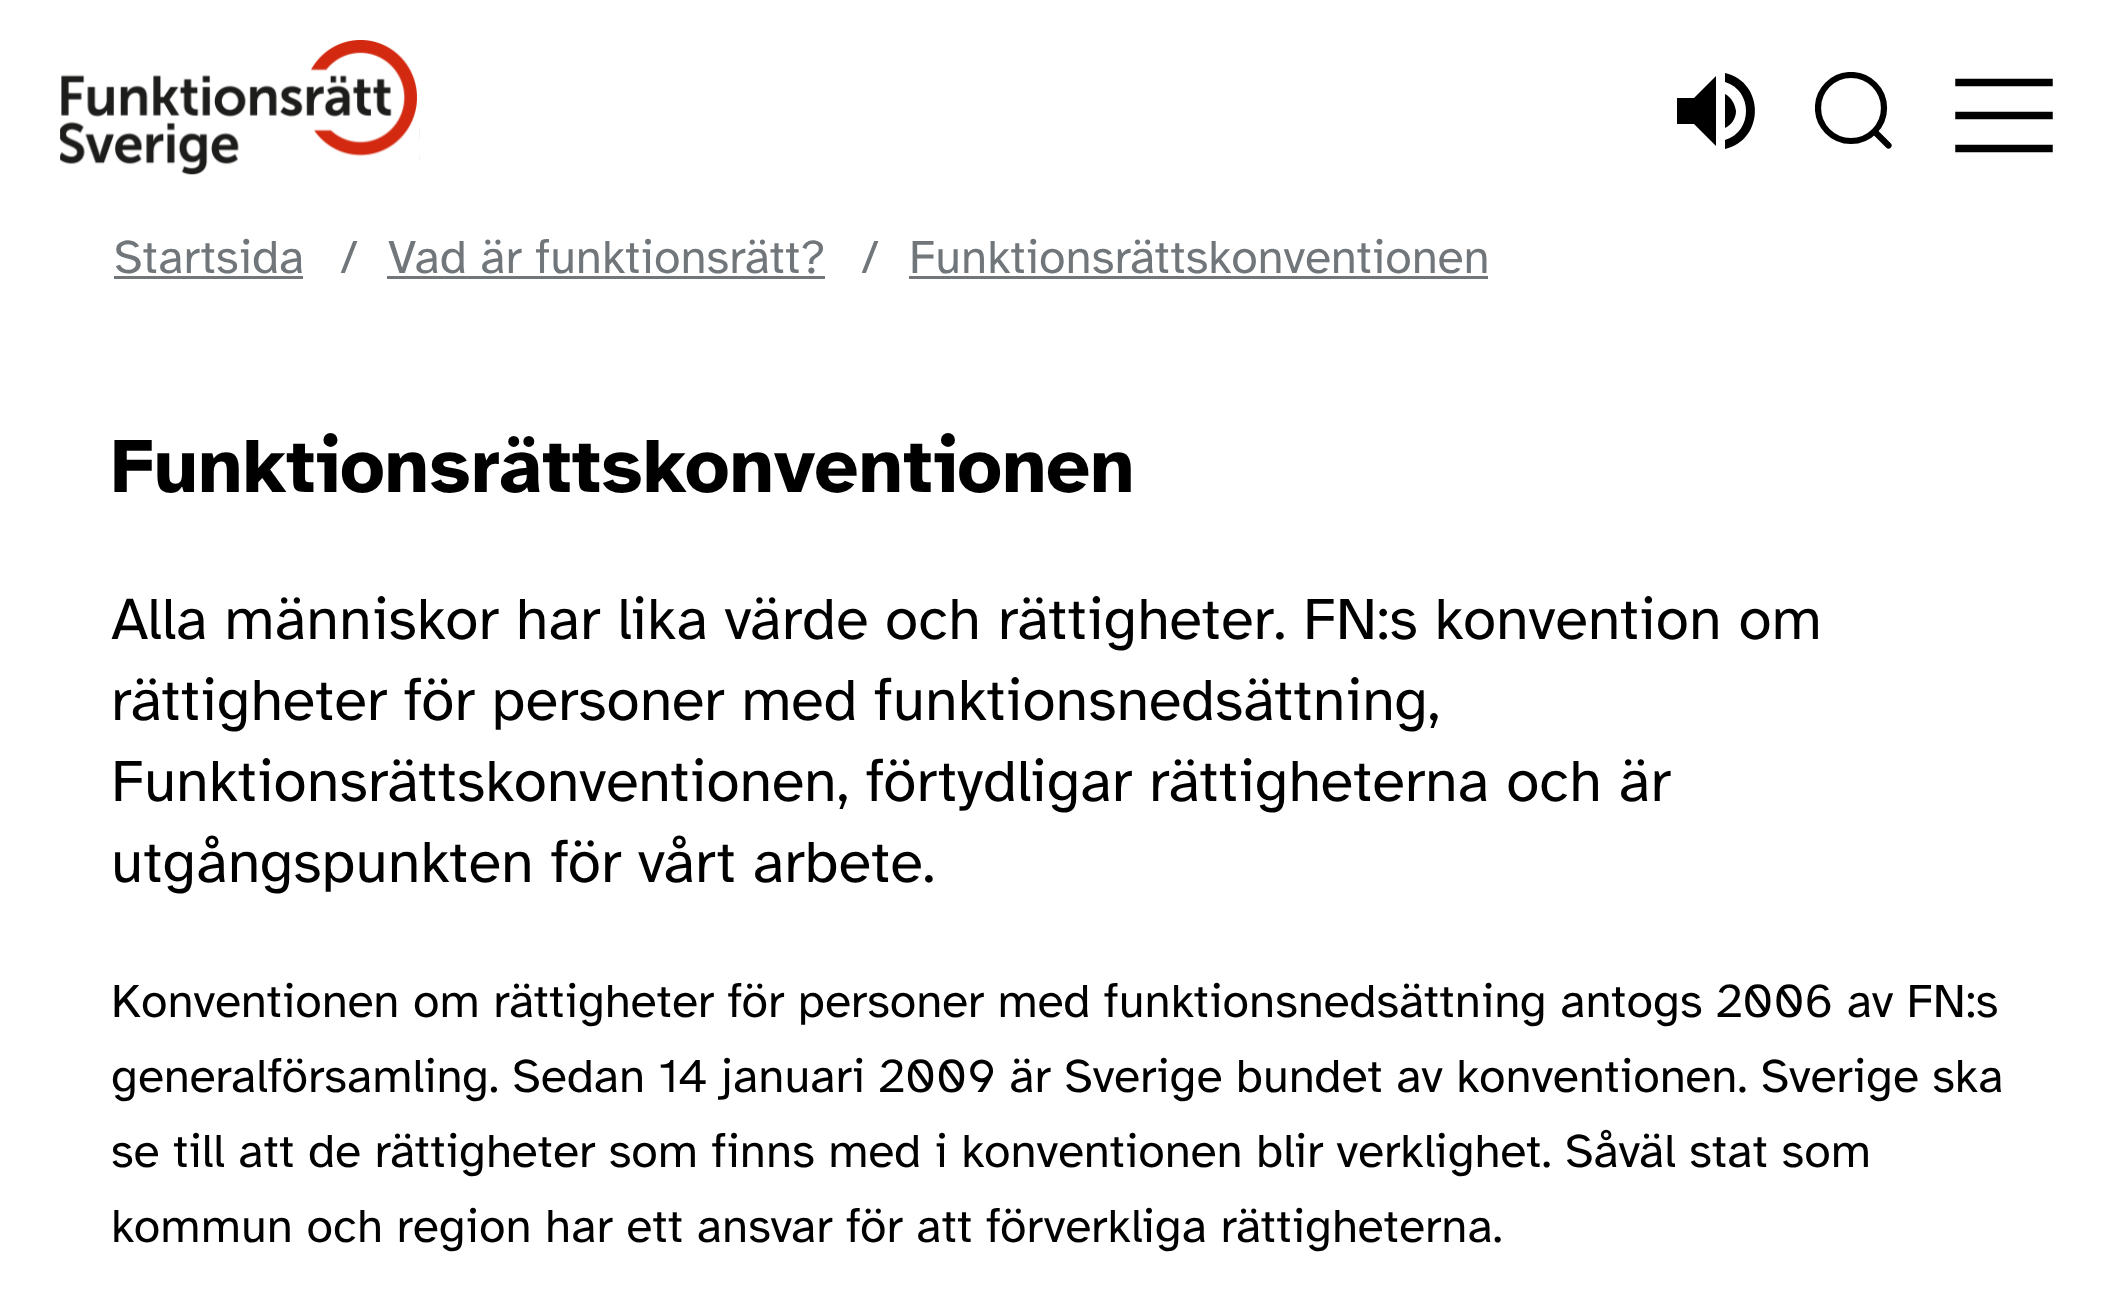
<svg xmlns="http://www.w3.org/2000/svg" xmlns:xlink="http://www.w3.org/1999/xlink" width="2115" height="1304" viewBox="0 0 2115 1304">
<style>
.cls-1{font:48px Atkinson Hyperlegible;fill:#71767a}
.cls-2{font:bold 78px Atkinson Hyperlegible;fill:#000000}
.cls-3{font:60px Atkinson Hyperlegible;fill:#000000}
.cls-4{font:48px Atkinson Hyperlegible;fill:#000000}
</style>
<defs>
<clipPath id="clip1"><rect x="1815" y="72" width="78" height="78"/></clipPath>
</defs>
<rect width="100%" height="100%" fill="#ffffff"/>
<image xlink:href="image0.png" x="60" y="40" width="360" height="135"/>
<path fill="#000000" d="M1677 98V124H1694L1716 146V76L1694 98ZM1736 111C1735 104 1731 97 1725 94V128C1731 125 1736 119 1736 111ZM1725 73V82C1753 90 1753 132 1725 140V149C1765 140 1765 82 1725 73Z"/>
<g clip-path="url(#clip1)">
<circle fill="none" stroke="#000000" stroke-width="6.2" cx="1851" cy="108" r="33"/>
</g>
<path fill="none" stroke="#000000" stroke-width="6.2" stroke-linecap="round" stroke-linejoin="round" d="M1888.5 145.5L1874.5 131.5"/>
<path fill="none" stroke="#000000" stroke-width="7.5" stroke-linecap="square" d="M1959 82.5H2049"/>
<path fill="none" stroke="#000000" stroke-width="7.5" stroke-linecap="square" d="M1959 115.5H2049"/>
<path fill="none" stroke="#000000" stroke-width="7.5" stroke-linecap="square" d="M1959 148.5H2049"/>
<rect fill="#71767a" x="114" y="276" width="189" height="3"/>
<rect fill="#71767a" x="387" y="276" width="438" height="3"/>
<rect fill="#71767a" x="909" y="276" width="579" height="3"/>
<text class="cls-1" x="114" y="273">Startsida</text>
<text class="cls-1" x="340" y="273">/</text>
<text class="cls-1" x="388" y="273">Vad är funktionsrätt?</text>
<text class="cls-1" x="861" y="273">/</text>
<text class="cls-1" x="909" y="273">Funktionsrättskonventionen</text>
<text class="cls-2" x="111" y="492">Funktionsrättskonventionen</text>
<text class="cls-3"><tspan x="111" y="639">Alla människor har lika värde och rättigheter. FN:s konvention om</tspan><tspan x="111" y="720">rättigheter för personer med funktionsnedsättning,</tspan><tspan x="111" y="801">Funktionsrättskonventionen, förtydligar rättigheterna och är</tspan><tspan x="111" y="882">utgångspunkten för vårt arbete.</tspan></text>
<text class="cls-4"><tspan x="111" y="1017">Konventionen om rättigheter för personer med funktionsnedsättning antogs 2006 av FN:s</tspan><tspan x="111" y="1092">generalförsamling. Sedan 14 januari 2009 är Sverige bundet av konventionen. Sverige ska</tspan><tspan x="111" y="1167">se till att de rättigheter som finns med i konventionen blir verklighet. Såväl stat som</tspan><tspan x="111" y="1242">kommun och region har ett ansvar för att förverkliga rättigheterna.</tspan></text>
</svg>
